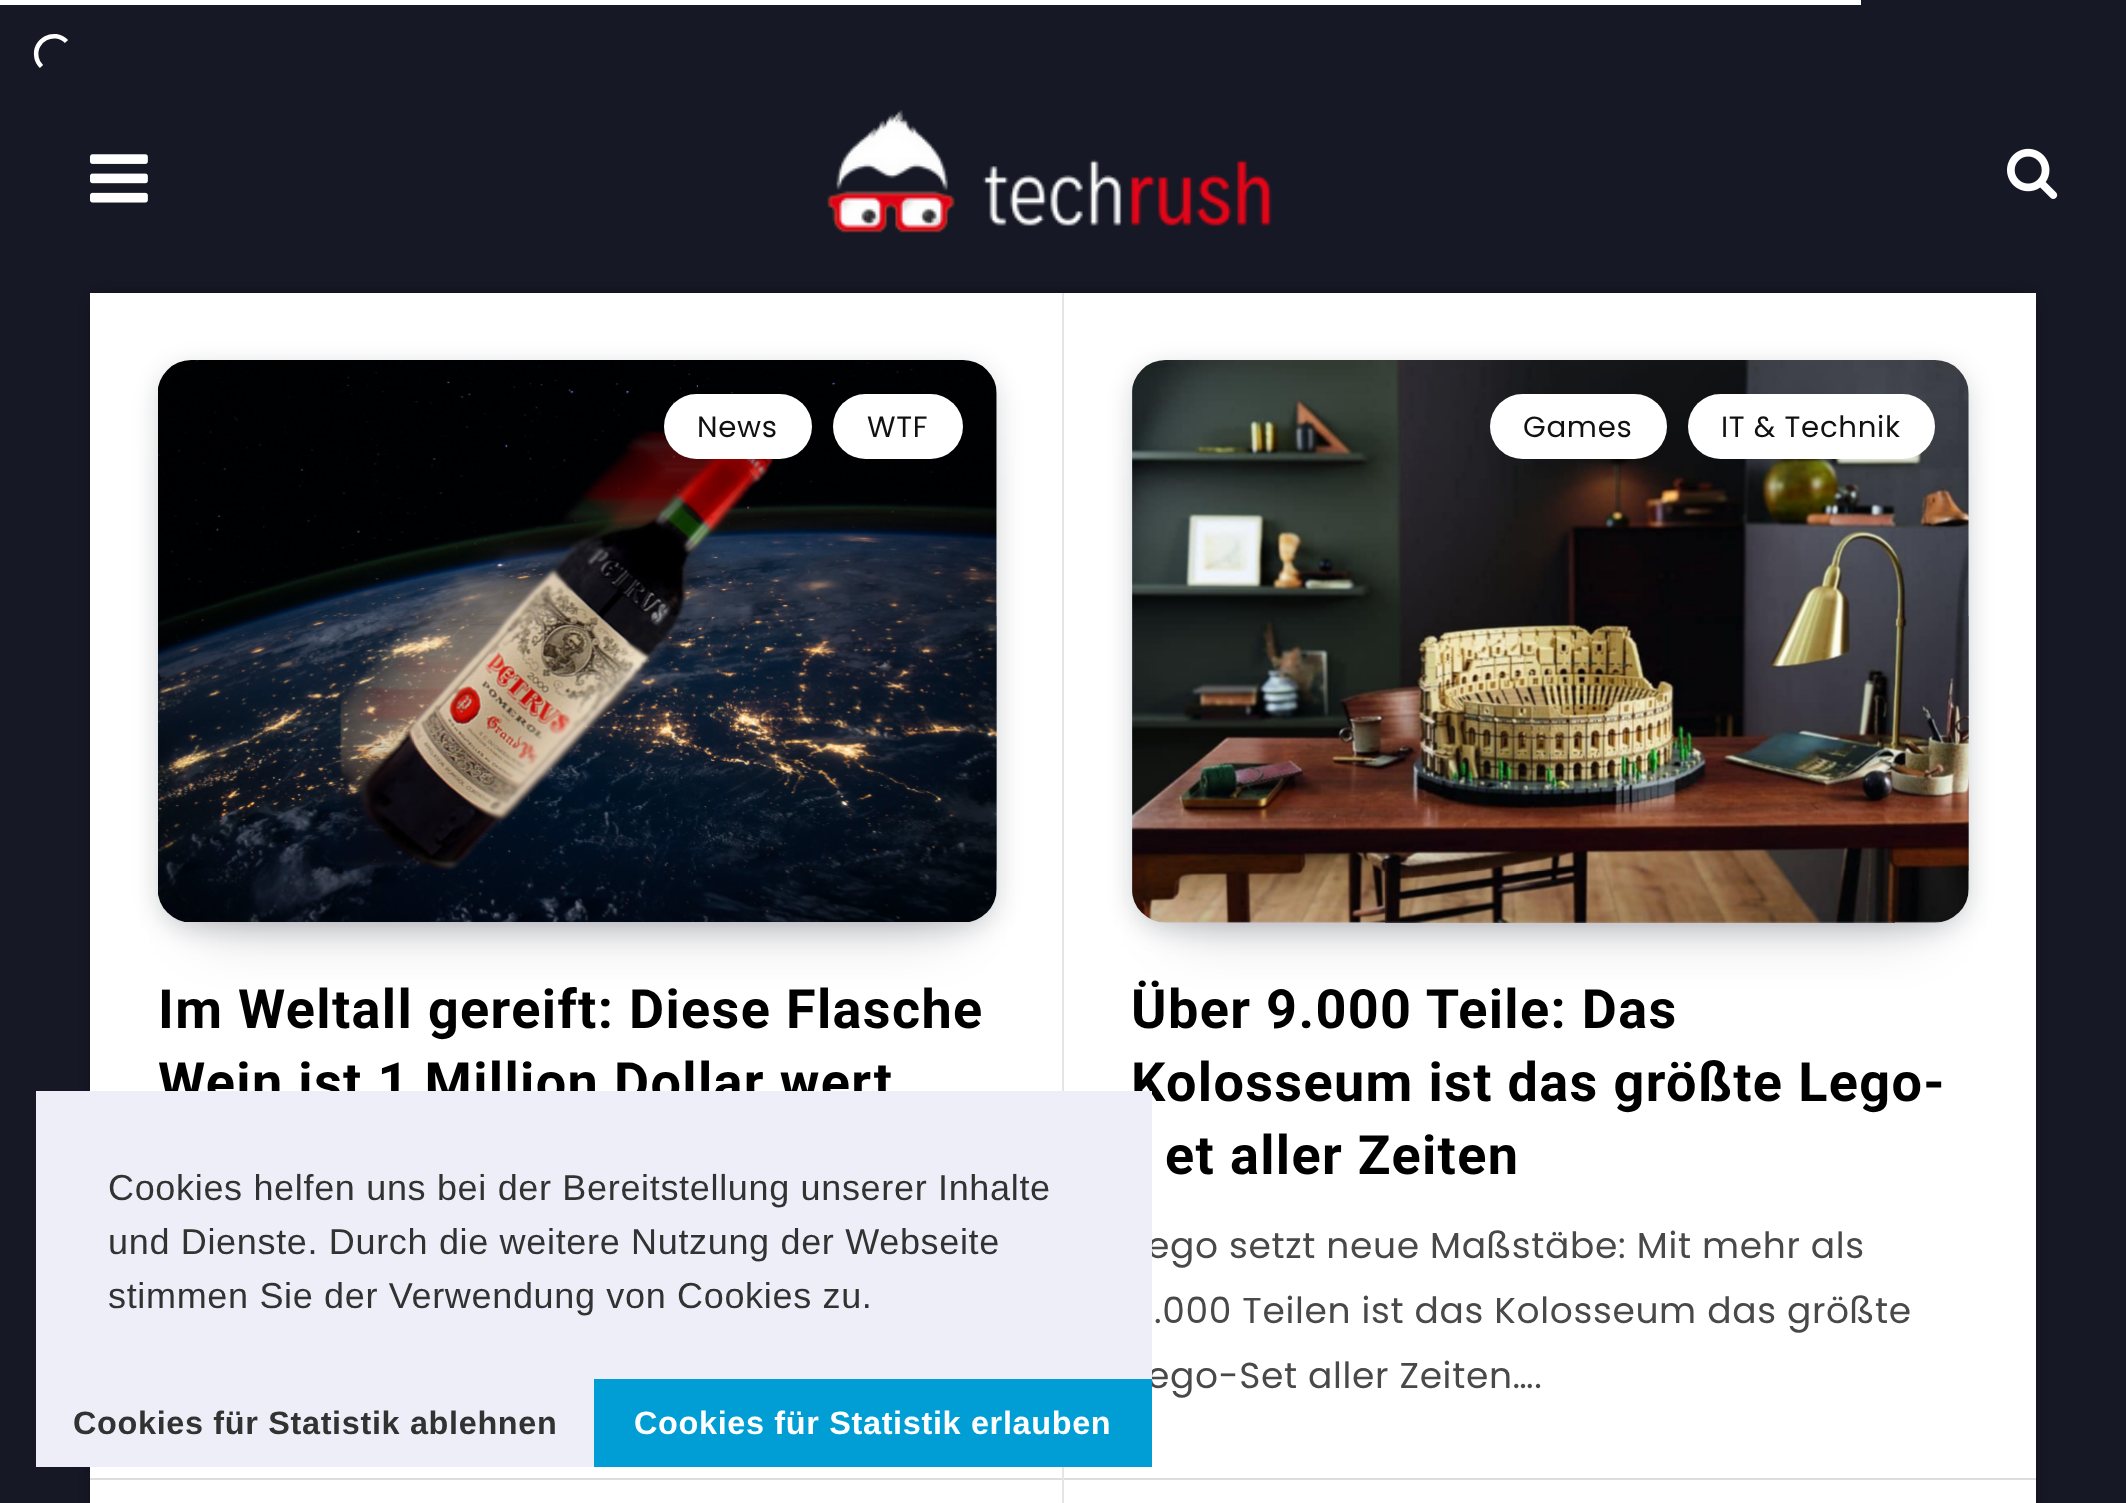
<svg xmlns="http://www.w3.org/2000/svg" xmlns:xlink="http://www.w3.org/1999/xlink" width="2126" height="1503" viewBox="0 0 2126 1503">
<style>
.cls-1{font:29.25px Poppins;letter-spacing:0.67px;fill:#111111}
.cls-2{font:bold 54px Roboto;letter-spacing:1.35px;fill:#000000}
.cls-3{font:36px Poppins;letter-spacing:0.67px;fill:#494949}
.cls-4{font:36px Liberation Sans;letter-spacing:0.67px;fill:#333232}
.cls-5{font:bold 32.4px Liberation Sans;letter-spacing:0.67px;fill:#333232}
.cls-6{font:bold 32.4px Liberation Sans;letter-spacing:0.67px;fill:#ffffff}
</style>
<rect width="100%" height="100%" fill="#161925"/>
<rect fill="#ffffff" x="0" y="0" width="1861" height="5"/>
<path fill="none" stroke="#ffffff" stroke-width="4.5" d="M41.5 66.5C39 64 37 61 36.5 57.5C33 40 54.5 29 66.5 41.5"/>
<image xlink:href="image0.png" x="90" y="154" width="58" height="49"/>
<image xlink:href="image1.png" x="827" y="110" width="445" height="123"/>
<image xlink:href="image2.png" x="2007" y="148" width="51" height="51"/>
<rect fill="#000000" fill-opacity="0.3" filter="blur(5.5px)" x="90" y="293" width="1946" height="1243" rx="16"/>
<rect fill="#ffffff" x="1064" y="293" width="972" height="1210"/>
<rect fill="#ffffff" x="90" y="293" width="972" height="1210"/>
<rect fill="#dddddd" x="90" y="1478" width="1946" height="2"/>
<rect fill="#070a19" fill-opacity="0.2" filter="blur(30.5px)" x="203" y="455" width="749" height="472"/>
<rect fill="#070a19" fill-opacity="0.2" filter="blur(13.5px)" x="160" y="369" width="835" height="558" rx="32"/>
<image xlink:href="image3.png" x="158" y="360" width="839" height="562"/>
<rect fill="#ffffff" x="664" y="394" width="148" height="65" rx="32.5"/>
<rect fill="#ffffff" x="833" y="394" width="130" height="65" rx="32.5"/>
<rect fill="#e5e5e5" x="1062" y="293" width="2" height="1210"/>
<rect fill="#070a19" fill-opacity="0.2" filter="blur(30.5px)" x="1177" y="455" width="747" height="472"/>
<rect fill="#070a19" fill-opacity="0.2" filter="blur(13.5px)" x="1134" y="369" width="833" height="558" rx="32"/>
<image xlink:href="image4.png" x="1132" y="360" width="837" height="563"/>
<rect fill="#ffffff" x="1490" y="394" width="177" height="65" rx="32.5"/>
<rect fill="#ffffff" x="1688" y="394" width="247" height="65" rx="32.5"/>
<text class="cls-1" x="697" y="437">News</text>
<text class="cls-1" x="867" y="437">WTF</text>
<text class="cls-2"><tspan x="158" y="1028">Im Weltall gereift: Diese Flasche</tspan><tspan x="158" y="1101">Wein ist 1 Million Dollar wert</tspan></text>
<text class="cls-1" x="1523" y="437">Games</text>
<text class="cls-1" x="1721" y="437">IT &amp; Technik</text>
<text class="cls-2"><tspan x="1131" y="1028">Über 9.000 Teile: Das</tspan><tspan x="1131" y="1101">Kolosseum ist das größte Lego-</tspan></text>
<text class="cls-2" x="1165" y="1174">et aller Zeiten</text>
<text class="cls-3" x="1147" y="1258">ego setzt neue Maßstäbe: Mit mehr als</text>
<text class="cls-3" x="1154" y="1323">.000 Teilen ist das Kolosseum das größte</text>
<text class="cls-3" x="1147" y="1388">ego-Set aller Zeiten….</text>
<rect fill="#eeeef8" x="36" y="1091" width="1116" height="376"/>
<text class="cls-4"><tspan x="108" y="1200">Cookies helfen uns bei der Bereitstellung unserer Inhalte</tspan><tspan x="108" y="1254">und Dienste. Durch die weitere Nutzung der Webseite</tspan><tspan x="108" y="1308">stimmen Sie der Verwendung von Cookies zu.</tspan></text>
<text class="cls-5" x="73" y="1434">Cookies für Statistik ablehnen</text>
<rect fill="#009ed4" x="594" y="1379" width="558" height="88"/>
<text class="cls-6" x="634" y="1434">Cookies für Statistik erlauben</text>
</svg>
